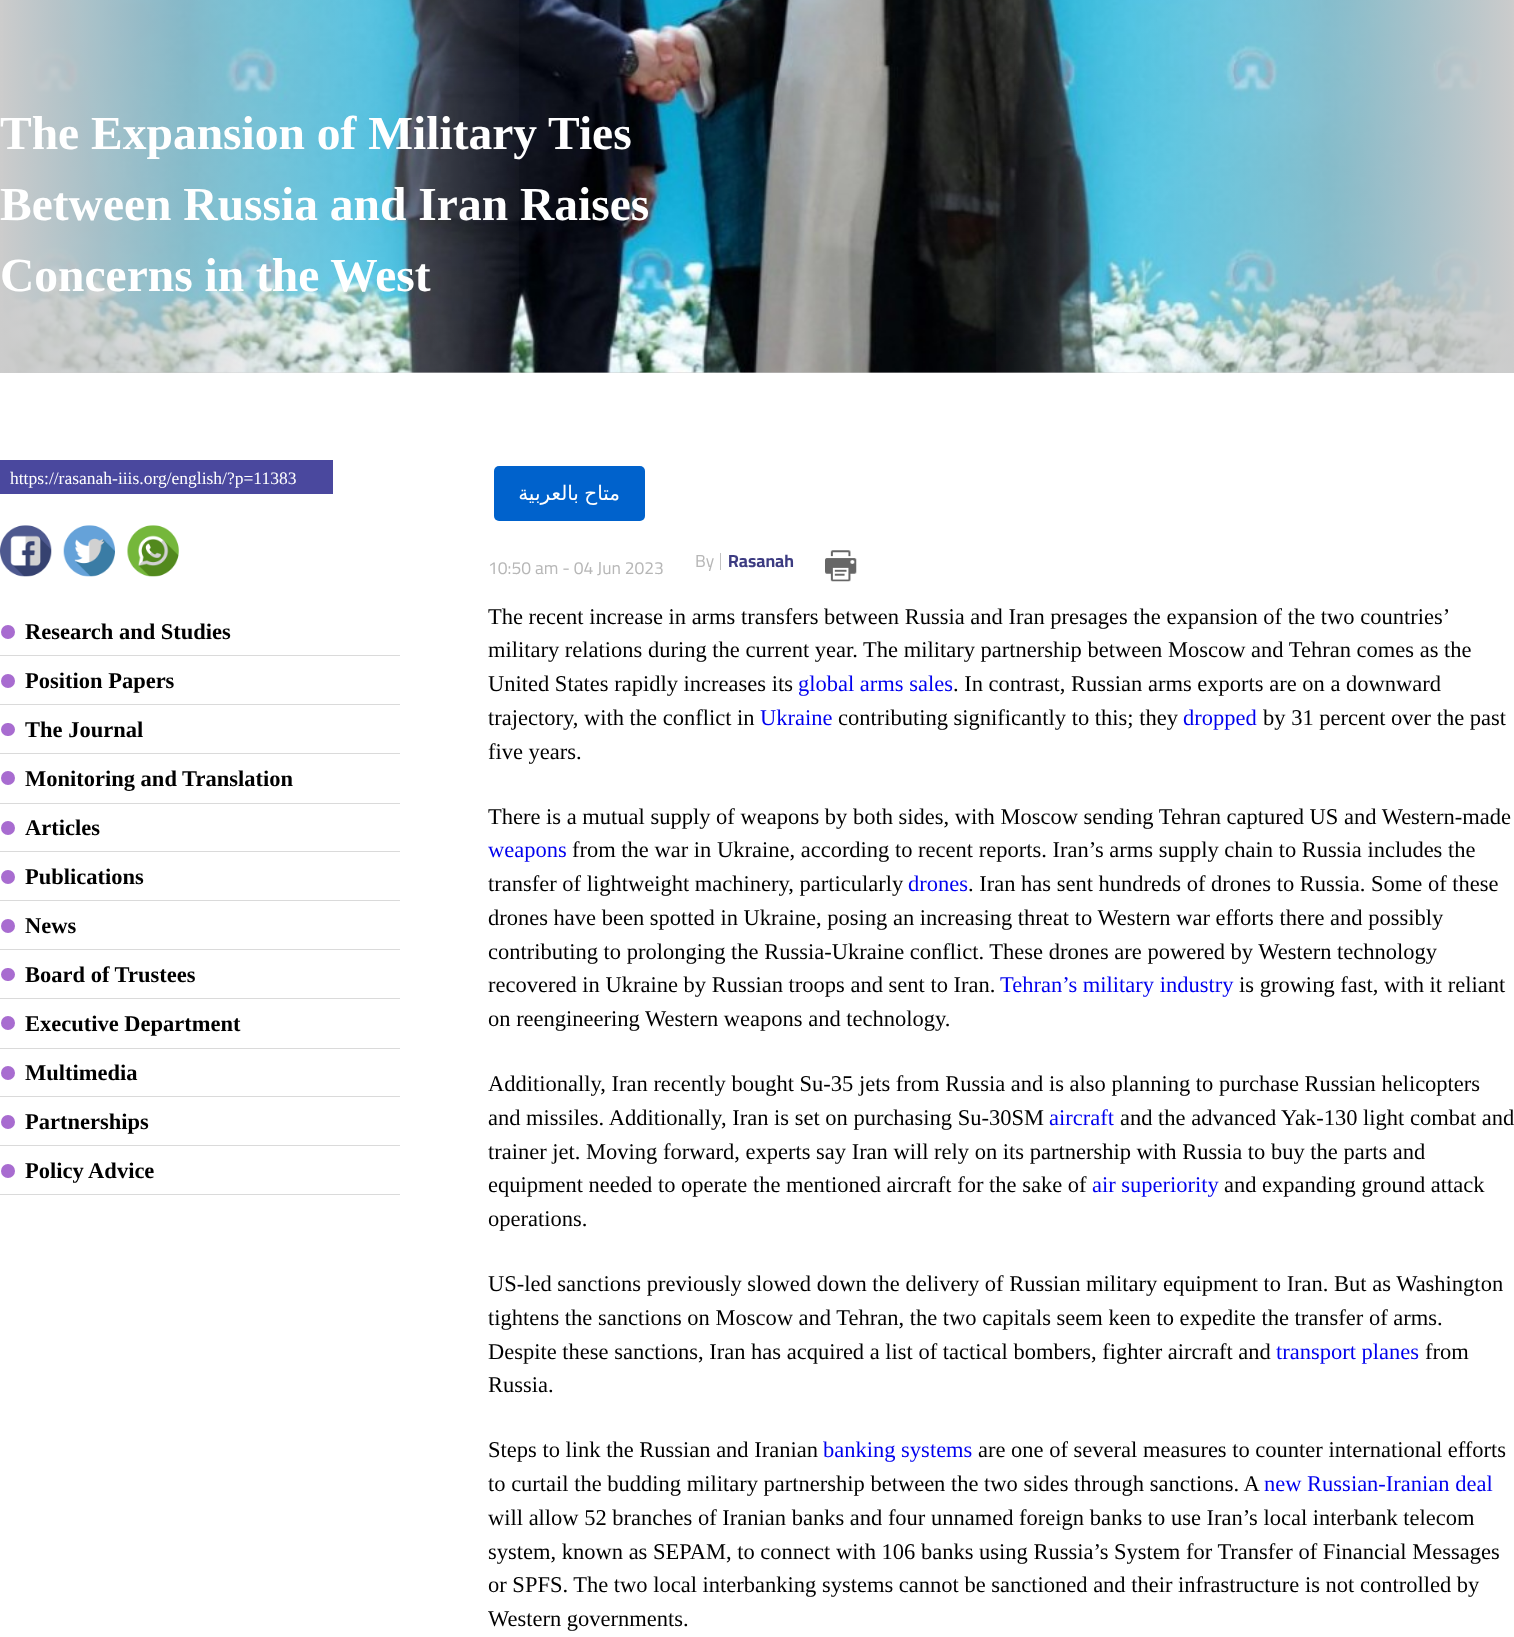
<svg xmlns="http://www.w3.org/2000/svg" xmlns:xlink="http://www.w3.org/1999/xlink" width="1514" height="1637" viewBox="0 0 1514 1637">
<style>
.cls-1{font:bold 47.5px Liberation Serif;fill:#ffffff}
.cls-2{font:17.5px Liberation Serif;fill:#ffffff}
.cls-3{font:bold 22.5px Liberation Serif;fill:#000000}
.cls-4{font:20px DejaVu Sans;direction:rtl;fill:#ffffff}
.cls-5{font:17.5px Cairo;fill:#b7b7b7}
.cls-6{font:bold 17.5px Cairo;fill:#3c3b81}
.cls-7{font:22.5px Liberation Serif;fill:#000000}
.cls-8{font:22.5px Liberation Serif;fill:#0000ee}
</style>
<defs>
<linearGradient id="g1" gradientUnits="userSpaceOnUse" x1="0" y1="223" x2="530" y2="223"><stop offset="0" stop-color="#cccccc"/><stop offset="0.35" stop-color="#cccccc" stop-opacity="0.65"/><stop offset="0.72" stop-color="#ffffff" stop-opacity="0.28"/><stop offset="1" stop-color="#ffffff" stop-opacity="0"/></linearGradient>
<linearGradient id="g2" gradientUnits="userSpaceOnUse" x1="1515" y1="223" x2="985" y2="223"><stop offset="0" stop-color="#cccccc"/><stop offset="0.35" stop-color="#cccccc" stop-opacity="0.65"/><stop offset="0.72" stop-color="#ffffff" stop-opacity="0.28"/><stop offset="1" stop-color="#ffffff" stop-opacity="0"/></linearGradient>
<clipPath id="clip1"><rect x="488" y="460" width="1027" height="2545"/></clipPath>
</defs>
<rect width="100%" height="100%" fill="#ffffff"/>
<rect fill="#cccccc" x="3" y="372" width="1509" height="1"/>
<image xlink:href="image0.png" x="3" y="0" width="1509" height="373"/>
<rect fill="url(#g1)" x="0" y="0" width="519" height="373"/>
<rect fill="url(#g2)" x="996" y="0" width="518" height="373"/>
<rect fill="#4a489e" x="0" y="460" width="333" height="34"/>
<image xlink:href="image1.png" x="0" y="525" width="52" height="52"/>
<image xlink:href="image2.png" x="63" y="525" width="52" height="52"/>
<image xlink:href="image3.png" x="127" y="525" width="52" height="52"/>
<rect fill="#dadada" x="0" y="655" width="400" height="1"/>
<circle fill="#a86cd0" cx="8" cy="632" r="7"/>
<rect fill="#dadada" x="0" y="704" width="400" height="1"/>
<circle fill="#a86cd0" cx="8" cy="681" r="7"/>
<rect fill="#dadada" x="0" y="753" width="400" height="1"/>
<rect fill="#a86cd0" x="1" y="723" width="14" height="13" rx="6.5"/>
<rect fill="#dadada" x="0" y="803" width="400" height="1"/>
<circle fill="#a86cd0" cx="8" cy="778" r="7"/>
<rect fill="#dadada" x="0" y="851" width="400" height="1"/>
<circle fill="#a86cd0" cx="8" cy="828" r="7"/>
<rect fill="#dadada" x="0" y="900" width="400" height="1"/>
<circle fill="#a86cd0" cx="8" cy="877" r="7"/>
<rect fill="#dadada" x="0" y="949" width="400" height="1"/>
<circle fill="#a86cd0" cx="8" cy="926" r="7"/>
<rect fill="#dadada" x="0" y="998" width="400" height="1"/>
<rect fill="#a86cd0" x="1" y="968" width="14" height="13" rx="6.5"/>
<rect fill="#dadada" x="0" y="1048" width="400" height="1"/>
<circle fill="#a86cd0" cx="8" cy="1023" r="7"/>
<rect fill="#dadada" x="0" y="1096" width="400" height="1"/>
<circle fill="#a86cd0" cx="8" cy="1073" r="7"/>
<rect fill="#dadada" x="0" y="1145" width="400" height="1"/>
<circle fill="#a86cd0" cx="8" cy="1122" r="7"/>
<rect fill="#dadada" x="0" y="1194" width="400" height="1"/>
<circle fill="#a86cd0" cx="8" cy="1171" r="7"/>
<rect fill="#0062cc" x="494" y="466" width="151" height="55" rx="5"/>
<rect fill="#c2c2c2" x="720" y="553" width="1" height="17"/>
<image xlink:href="image4.png" x="825" y="550" width="32" height="32"/>
<text class="cls-1"><tspan x="0" y="149">The Expansion of Military Ties</tspan><tspan x="0" y="220">Between Russia and Iran Raises</tspan><tspan x="0" y="291">Concerns in the West</tspan></text>
<text class="cls-2" x="10" y="484">https://rasanah-iiis.org/english/?p=11383</text>
<text class="cls-3" x="25" y="639">Research and Studies</text>
<text class="cls-3" x="25" y="688">Position Papers</text>
<text class="cls-3" x="25" y="737">The Journal</text>
<text class="cls-3" x="25" y="786">Monitoring and Translation</text>
<text class="cls-3" x="25" y="835">Articles</text>
<text class="cls-3" x="25" y="884">Publications</text>
<text class="cls-3" x="25" y="933">News</text>
<text class="cls-3" x="25" y="982">Board of Trustees</text>
<text class="cls-3" x="25" y="1031">Executive Department</text>
<text class="cls-3" x="25" y="1080">Multimedia</text>
<text class="cls-3" x="25" y="1129">Partnerships</text>
<text class="cls-3" x="25" y="1178">Policy Advice</text>
<text class="cls-4" x="620" y="500" word-spacing="-1">متاح بالعربية</text>
<text class="cls-5" x="488" y="574">10:50 am - 04 Jun 2023</text>
<text class="cls-5" x="695" y="567">By</text>
<text class="cls-6" x="728" y="567">Rasanah</text>
<g clip-path="url(#clip1)">
<text class="cls-7" x="488" y="624">The recent increase in arms transfers between Russia and Iran presages the expansion of the two countries’</text>
</g>
<text class="cls-7"><tspan x="488" y="657">military relations during the current year. The military partnership between Moscow and Tehran comes as the</tspan><tspan x="488" y="691">United States rapidly increases its</tspan></text>
<text class="cls-8" x="798" y="691">global arms sales</text>
<text class="cls-7" x="953" y="691">. In contrast, Russian arms exports are on a downward</text>
<text class="cls-7" x="488" y="725">trajectory, with the conflict in</text>
<text class="cls-8" x="760" y="725">Ukraine</text>
<text class="cls-7" x="838" y="725">contributing significantly to this; they</text>
<text class="cls-8" x="1183" y="725">dropped</text>
<text class="cls-7" x="1263" y="725">by 31 percent over the past</text>
<text class="cls-7" x="488" y="759">five years.</text>
<g clip-path="url(#clip1)">
<text class="cls-7" x="488" y="824">There is a mutual supply of weapons by both sides, with Moscow sending Tehran captured US and Western-made</text>
</g>
<text class="cls-8" x="488" y="857">weapons</text>
<text class="cls-7" x="572" y="857">from the war in Ukraine, according to recent reports. Iran’s arms supply chain to Russia includes the</text>
<text class="cls-7" x="488" y="891">transfer of lightweight machinery, particularly</text>
<text class="cls-8" x="908" y="891">drones</text>
<text class="cls-7" x="968" y="891">. Iran has sent hundreds of drones to Russia. Some of these</text>
<text class="cls-7"><tspan x="488" y="925">drones have been spotted in Ukraine, posing an increasing threat to Western war efforts there and possibly</tspan><tspan x="488" y="959">contributing to prolonging the Russia-Ukraine conflict. These drones are powered by Western technology</tspan><tspan x="488" y="992">recovered in Ukraine by Russian troops and sent to Iran.</tspan></text>
<text class="cls-8" x="1000" y="992">Tehran’s military industry</text>
<text class="cls-7" x="1239" y="992">is growing fast, with it reliant</text>
<text class="cls-7" x="488" y="1026">on reengineering Western weapons and technology.</text>
<text class="cls-7"><tspan x="488" y="1091">Additionally, Iran recently bought Su-35 jets from Russia and is also planning to purchase Russian helicopters</tspan><tspan x="488" y="1125">and missiles. Additionally, Iran is set on purchasing Su-30SM</tspan></text>
<text class="cls-8" x="1049" y="1125">aircraft</text>
<text class="cls-7" x="1120" y="1125">and the advanced Yak-130 light combat and</text>
<text class="cls-7"><tspan x="488" y="1159">trainer jet. Moving forward, experts say Iran will rely on its partnership with Russia to buy the parts and</tspan><tspan x="488" y="1192">equipment needed to operate the mentioned aircraft for the sake of</tspan></text>
<text class="cls-8" x="1092" y="1192">air superiority</text>
<text class="cls-7" x="1224" y="1192">and expanding ground attack</text>
<text class="cls-7" x="488" y="1226">operations.</text>
<text class="cls-7"><tspan x="488" y="1291">US-led sanctions previously slowed down the delivery of Russian military equipment to Iran. But as Washington</tspan><tspan x="488" y="1325">tightens the sanctions on Moscow and Tehran, the two capitals seem keen to expedite the transfer of arms.</tspan><tspan x="488" y="1359">Despite these sanctions, Iran has acquired a list of tactical bombers, fighter aircraft and</tspan></text>
<text class="cls-8" x="1276" y="1359">transport planes</text>
<text class="cls-7" x="1425" y="1359">from</text>
<text class="cls-7" x="488" y="1392">Russia.</text>
<text class="cls-7" x="488" y="1457">Steps to link the Russian and Iranian</text>
<text class="cls-8" x="823" y="1457">banking systems</text>
<text class="cls-7" x="978" y="1457">are one of several measures to counter international efforts</text>
<text class="cls-7" x="488" y="1491">to curtail the budding military partnership between the two sides through sanctions. A</text>
<text class="cls-8" x="1264" y="1491">new Russian-Iranian deal</text>
<text class="cls-7"><tspan x="488" y="1525">will allow 52 branches of Iranian banks and four unnamed foreign banks to use Iran’s local interbank telecom</tspan><tspan x="488" y="1559">system, known as SEPAM, to connect with 106 banks using Russia’s System for Transfer of Financial Messages</tspan><tspan x="488" y="1592">or SPFS. The two local interbanking systems cannot be sanctioned and their infrastructure is not controlled by</tspan><tspan x="488" y="1626">Western governments.</tspan></text>
</svg>
